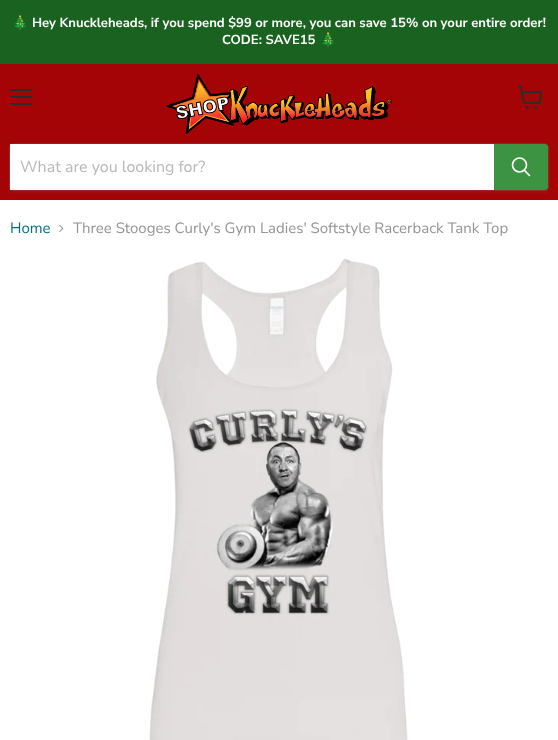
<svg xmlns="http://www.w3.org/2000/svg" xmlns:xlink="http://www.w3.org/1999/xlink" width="558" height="740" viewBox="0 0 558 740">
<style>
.cls-1{font:bold 13.1px Noto Color Emoji;fill:#ffffff}
.cls-2{font:bold 13.1px Nunito Sans;fill:#ffffff}
.cls-3{font:16px Nunito Sans;fill:#b8b8b8}
.cls-4{font:15px Nunito Sans;fill:#046e82}
.cls-5{font:15px Nunito Sans;fill:#949494}
</style>
<rect width="100%" height="100%" fill="#ffffff"/>
<rect fill="#1a621f" x="0" y="0" width="558" height="64"/>
<rect fill="#a40406" x="0" y="64" width="558" height="136"/>
<rect fill="#2c2c2c" x="10" y="89" width="22" height="2"/>
<rect fill="#2c2c2c" x="10" y="96" width="22" height="2"/>
<rect fill="#2c2c2c" x="10" y="103" width="22" height="2"/>
<image xlink:href="image0.png" x="518" y="85" width="24" height="24"/>
<image xlink:href="image1.png" x="166" y="74" width="226" height="60"/>
<rect fill="#808080" fill-opacity="0.11" filter="blur(1.5px)" x="9" y="145" width="540" height="48" rx="4"/>
<rect fill="none" stroke="#808080" stroke-opacity="0.2" x="9.5" y="143.5" width="539" height="47" rx="3.5"/>
<rect fill="#ffffff" x="10" y="144" width="484" height="46"/>
<path fill="#3c9342" stroke="#3c9342" d="M494.5 144.5H545C546.5 144.5 547.5 145.5 547.5 147V187C547.5 188.5 546.5 189.5 545 189.5H494.5Z"/>
<path fill="none" stroke="#ffffff" stroke-width="1.7" stroke-linecap="round" d="M529.5 175.5L524.5 170.5"/>
<circle fill="none" stroke="#ffffff" stroke-width="1.7" cx="519.5" cy="165" r="7"/>
<image xlink:href="image2.png" x="59" y="225" width="5" height="7"/>
<image xlink:href="image3.png" x="149" y="258" width="259" height="482"/>
<text class="cls-1" x="12" y="27">🎄</text>
<text class="cls-2" x="32" y="27">Hey Knuckleheads, if you spend $99 or more, you can save 15% on your entire order!</text>
<text class="cls-2" x="222" y="44">CODE: SAVE15</text>
<text class="cls-1" x="320" y="44">🎄</text>
<text class="cls-3" x="20" y="172">What are you looking for?</text>
<text class="cls-4" x="10" y="233">Home</text>
<text class="cls-5" x="73" y="233">Three Stooges Curly's Gym Ladies' Softstyle Racerback Tank Top</text>
</svg>
